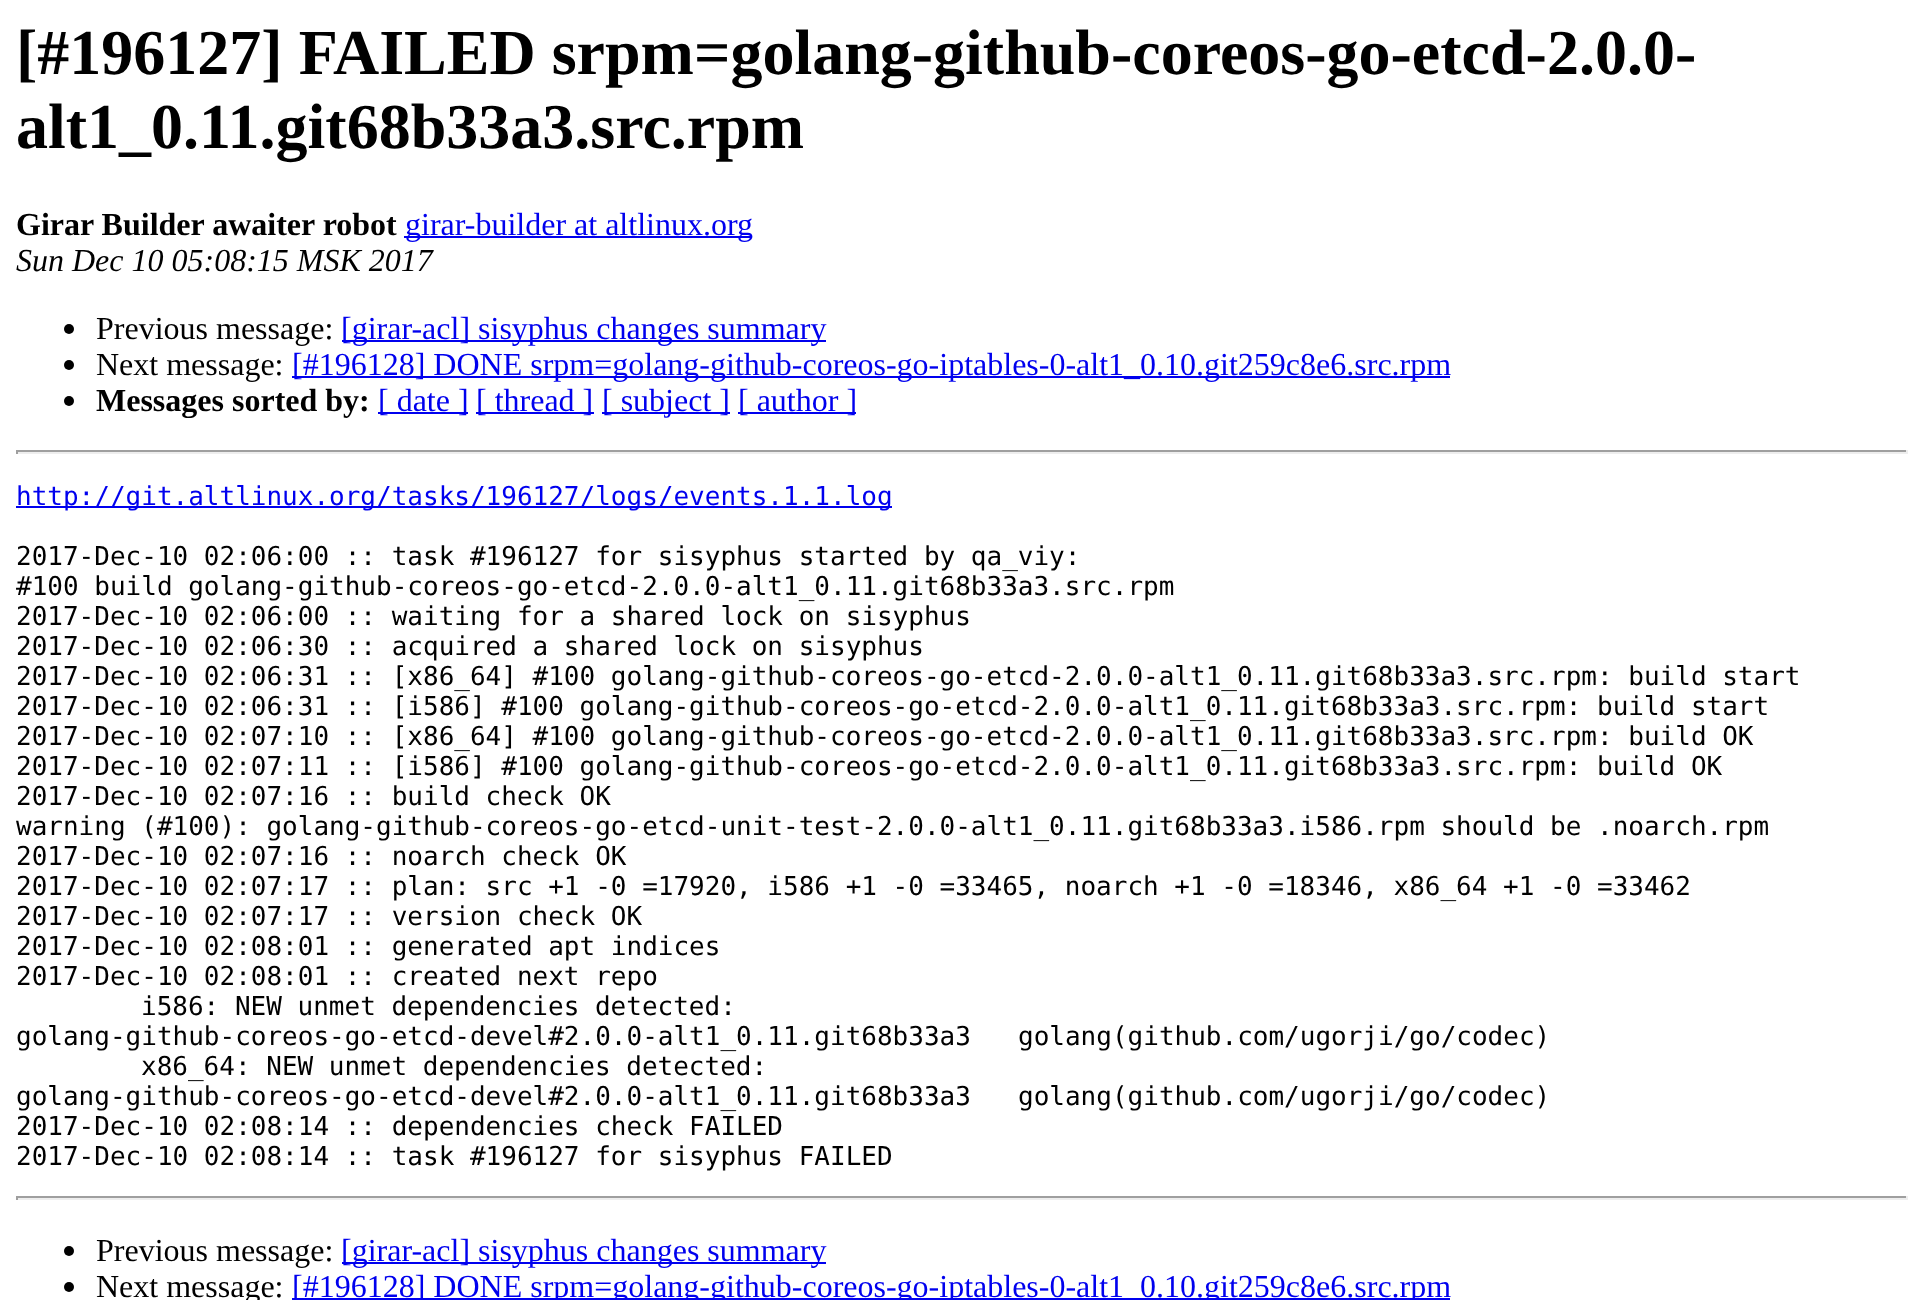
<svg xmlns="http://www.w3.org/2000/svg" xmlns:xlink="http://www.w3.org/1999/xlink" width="1924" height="1300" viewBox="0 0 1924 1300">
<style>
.cls-1{font:bold 64px Liberation Serif;fill:#000000}
.cls-2{font:bold 32px Liberation Serif;fill:#000000}
.cls-3{font:32px Liberation Serif;fill:#0000ee}
.cls-4{font:italic 32px Liberation Serif;fill:#000000}
.cls-5{font:32px Liberation Serif;fill:#000000}
.cls-6{font:26px DejaVu Sans Mono;fill:#0000ee}
.cls-7{font:26px DejaVu Sans Mono;fill:#000000}
</style>
<rect width="100%" height="100%" fill="#ffffff"/>
<rect fill="#0000ee" x="404" y="236" width="348" height="2"/>
<circle fill="#000000" cx="69" cy="329" r="5"/>
<rect fill="#0000ee" x="342" y="340" width="484" height="2"/>
<circle fill="#000000" cx="69" cy="365" r="5"/>
<rect fill="#0000ee" x="292" y="376" width="1158" height="2"/>
<circle fill="#000000" cx="69" cy="401" r="5"/>
<rect fill="#0000ee" x="378" y="412" width="90" height="2"/>
<rect fill="#0000ee" x="476" y="412" width="118" height="2"/>
<rect fill="#0000ee" x="602" y="412" width="128" height="2"/>
<rect fill="#0000ee" x="738" y="412" width="118" height="2"/>
<rect fill="#9f9f9f" x="16" y="450" width="1892" height="2"/>
<rect fill="#eeeeee" x="1906" y="450" width="2" height="4"/>
<rect fill="#eeeeee" x="16" y="452" width="1892" height="2"/>
<rect fill="#9f9f9f" x="16" y="450" width="2" height="4"/>
<rect fill="#0000ee" x="16" y="506" width="876" height="2"/>
<rect fill="#9f9f9f" x="16" y="1196" width="1892" height="2"/>
<rect fill="#eeeeee" x="1906" y="1196" width="2" height="4"/>
<rect fill="#eeeeee" x="16" y="1198" width="1892" height="2"/>
<rect fill="#9f9f9f" x="16" y="1196" width="2" height="4"/>
<circle fill="#000000" cx="69" cy="1251" r="5"/>
<rect fill="#0000ee" x="342" y="1262" width="484" height="2"/>
<circle fill="#000000" cx="69" cy="1287" r="5"/>
<rect fill="#0000ee" x="292" y="1298" width="1158" height="2"/>
<text class="cls-1"><tspan x="16" y="74">[#196127] FAILED srpm=golang-github-coreos-go-etcd-2.0.0-</tspan><tspan x="16" y="148">alt1_0.11.git68b33a3.src.rpm</tspan></text>
<text class="cls-2" x="16" y="235">Girar Builder awaiter robot</text>
<text class="cls-3" x="405" y="235">girar-builder at altlinux.org</text>
<text class="cls-4" x="16" y="271">Sun Dec 10 05:08:15 MSK 2017</text>
<text class="cls-5" x="96" y="339">Previous message:</text>
<text class="cls-3" x="341" y="339">[girar-acl] sisyphus changes summary</text>
<text class="cls-5" x="96" y="375">Next message:</text>
<text class="cls-3" x="292" y="375">[#196128] DONE srpm=golang-github-coreos-go-iptables-0-alt1_0.10.git259c8e6.src.rpm</text>
<text class="cls-2" x="96" y="411">Messages sorted by:</text>
<text class="cls-3" x="378" y="411">[ date ]</text>
<text class="cls-3" x="476" y="411">[ thread ]</text>
<text class="cls-3" x="602" y="411">[ subject ]</text>
<text class="cls-3" x="738" y="411">[ author ]</text>
<text class="cls-6" x="16" y="505">http://git.altlinux.org/tasks/196127/logs/events.1.1.log</text>
<text class="cls-7"><tspan x="16" y="565">2017-Dec-10 02:06:00 :: task #196127 for sisyphus started by qa_viy:</tspan><tspan x="16" y="595">#100 build golang-github-coreos-go-etcd-2.0.0-alt1_0.11.git68b33a3.src.rpm</tspan><tspan x="16" y="625">2017-Dec-10 02:06:00 :: waiting for a shared lock on sisyphus</tspan><tspan x="16" y="655">2017-Dec-10 02:06:30 :: acquired a shared lock on sisyphus</tspan><tspan x="16" y="685">2017-Dec-10 02:06:31 :: [x86_64] #100 golang-github-coreos-go-etcd-2.0.0-alt1_0.11.git68b33a3.src.rpm: build start</tspan><tspan x="16" y="715">2017-Dec-10 02:06:31 :: [i586] #100 golang-github-coreos-go-etcd-2.0.0-alt1_0.11.git68b33a3.src.rpm: build start</tspan><tspan x="16" y="745">2017-Dec-10 02:07:10 :: [x86_64] #100 golang-github-coreos-go-etcd-2.0.0-alt1_0.11.git68b33a3.src.rpm: build OK</tspan><tspan x="16" y="775">2017-Dec-10 02:07:11 :: [i586] #100 golang-github-coreos-go-etcd-2.0.0-alt1_0.11.git68b33a3.src.rpm: build OK</tspan><tspan x="16" y="805">2017-Dec-10 02:07:16 :: build check OK</tspan><tspan x="16" y="835">warning (#100): golang-github-coreos-go-etcd-unit-test-2.0.0-alt1_0.11.git68b33a3.i586.rpm should be .noarch.rpm</tspan><tspan x="16" y="865">2017-Dec-10 02:07:16 :: noarch check OK</tspan><tspan x="16" y="895">2017-Dec-10 02:07:17 :: plan: src +1 -0 =17920, i586 +1 -0 =33465, noarch +1 -0 =18346, x86_64 +1 -0 =33462</tspan><tspan x="16" y="925">2017-Dec-10 02:07:17 :: version check OK</tspan><tspan x="16" y="955">2017-Dec-10 02:08:01 :: generated apt indices</tspan><tspan x="16" y="985">2017-Dec-10 02:08:01 :: created next repo</tspan></text>
<text class="cls-7" x="141" y="1015">i586: NEW unmet dependencies detected:</text>
<text class="cls-7" x="16" y="1045">golang-github-coreos-go-etcd-devel#2.0.0-alt1_0.11.git68b33a3</text>
<text class="cls-7" x="1018" y="1045">golang(github.com/ugorji/go/codec)</text>
<text class="cls-7" x="141" y="1075">x86_64: NEW unmet dependencies detected:</text>
<text class="cls-7" x="16" y="1105">golang-github-coreos-go-etcd-devel#2.0.0-alt1_0.11.git68b33a3</text>
<text class="cls-7" x="1018" y="1105">golang(github.com/ugorji/go/codec)</text>
<text class="cls-7"><tspan x="16" y="1135">2017-Dec-10 02:08:14 :: dependencies check FAILED</tspan><tspan x="16" y="1165">2017-Dec-10 02:08:14 :: task #196127 for sisyphus FAILED</tspan></text>
<text class="cls-5" x="96" y="1261">Previous message:</text>
<text class="cls-3" x="341" y="1261">[girar-acl] sisyphus changes summary</text>
<text class="cls-5" x="96" y="1297">Next message:</text>
<text class="cls-3" x="292" y="1297">[#196128] DONE srpm=golang-github-coreos-go-iptables-0-alt1_0.10.git259c8e6.src.rpm</text>
</svg>
